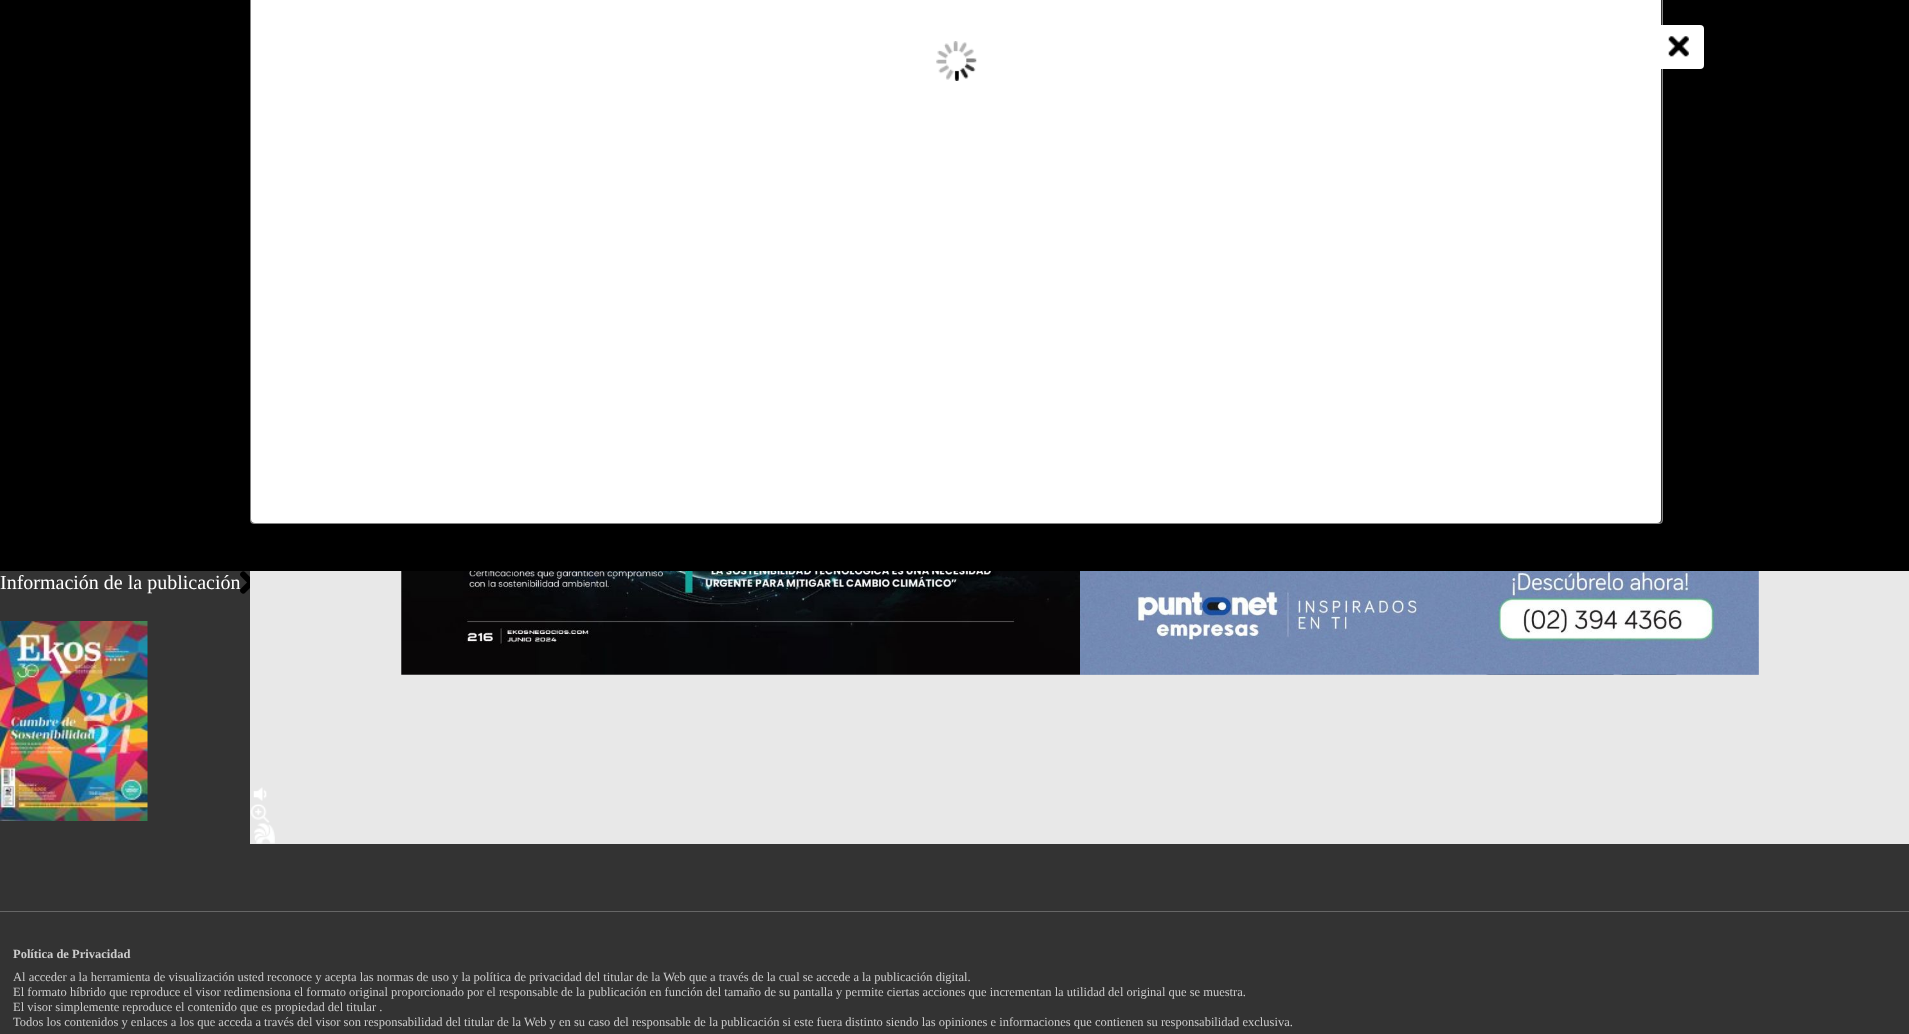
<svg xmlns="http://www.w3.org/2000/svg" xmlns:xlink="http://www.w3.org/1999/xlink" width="1909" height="1034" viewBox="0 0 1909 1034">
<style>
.cls-1{font:20px Liberation Serif;fill:#ffffff}
.cls-2{font:bold 12.5px Liberation Serif;fill:#cccccc}
.cls-3{font:12.5px Liberation Serif;fill:#cccccc}
</style>
<rect width="100%" height="100%" fill="#333333"/>
<rect fill="#000000" x="0" y="0" width="1909" height="571"/>
<rect fill="#333333" x="250" y="-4" width="1413" height="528" rx="4"/>
<rect fill="none" stroke="#ffffff" stroke-opacity="0.4" x="250.5" y="-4.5" width="1412" height="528" rx="3.5"/>
<rect fill="#ffffff" x="251" y="-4" width="1410" height="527" rx="4"/>
<rect fill="#ffffff" x="1653" y="25" width="51" height="44" rx="4"/>
<image xlink:href="image0.png" x="1668" y="36" width="21" height="21"/>
<image xlink:href="image1.png" x="936" y="41" width="41" height="40"/>
<rect fill="#e8e8e8" x="250" y="571" width="1659" height="273"/>
<image xlink:href="image2.png" x="401" y="571" width="679" height="104"/>
<image xlink:href="image3.png" x="401" y="571" width="679" height="104"/>
<image xlink:href="image4.png" x="1080" y="571" width="679" height="104"/>
<image xlink:href="image5.png" x="1080" y="571" width="679" height="104"/>
<image xlink:href="image6.png" x="253" y="787" width="14" height="14"/>
<image xlink:href="image7.png" x="250" y="804" width="20" height="19"/>
<image xlink:href="image8.png" x="254" y="823" width="21" height="21"/>
<image xlink:href="image10.png" x="0" y="621" width="148" height="200"/>
<rect fill="#666666" x="0" y="911" width="1909" height="1"/>
<text class="cls-1" x="0" y="589">Información de la publicación</text>
<image xlink:href="image9.png" x="240" y="571" width="10" height="23"/>
<text class="cls-2" x="13" y="958">Política de Privacidad</text>
<text class="cls-3"><tspan x="13" y="981">Al acceder a la herramienta de visualización usted reconoce y acepta las normas de uso y la política de privacidad del titular de la Web que a través de la cual se accede a la publicación digital.</tspan><tspan x="13" y="996">El formato híbrido que reproduce el visor redimensiona el formato original proporcionado por el responsable de la publicación en función del tamaño de su pantalla y permite ciertas acciones que incrementan la utilidad del original que se muestra.</tspan><tspan x="13" y="1011">El visor simplemente reproduce el contenido que es propiedad del titular .</tspan><tspan x="13" y="1026">Todos los contenidos y enlaces a los que acceda a través del visor son responsabilidad del titular de la Web y en su caso del responsable de la publicación si este fuera distinto siendo las opiniones e informaciones que contienen su responsabilidad exclusiva.</tspan></text>
</svg>
